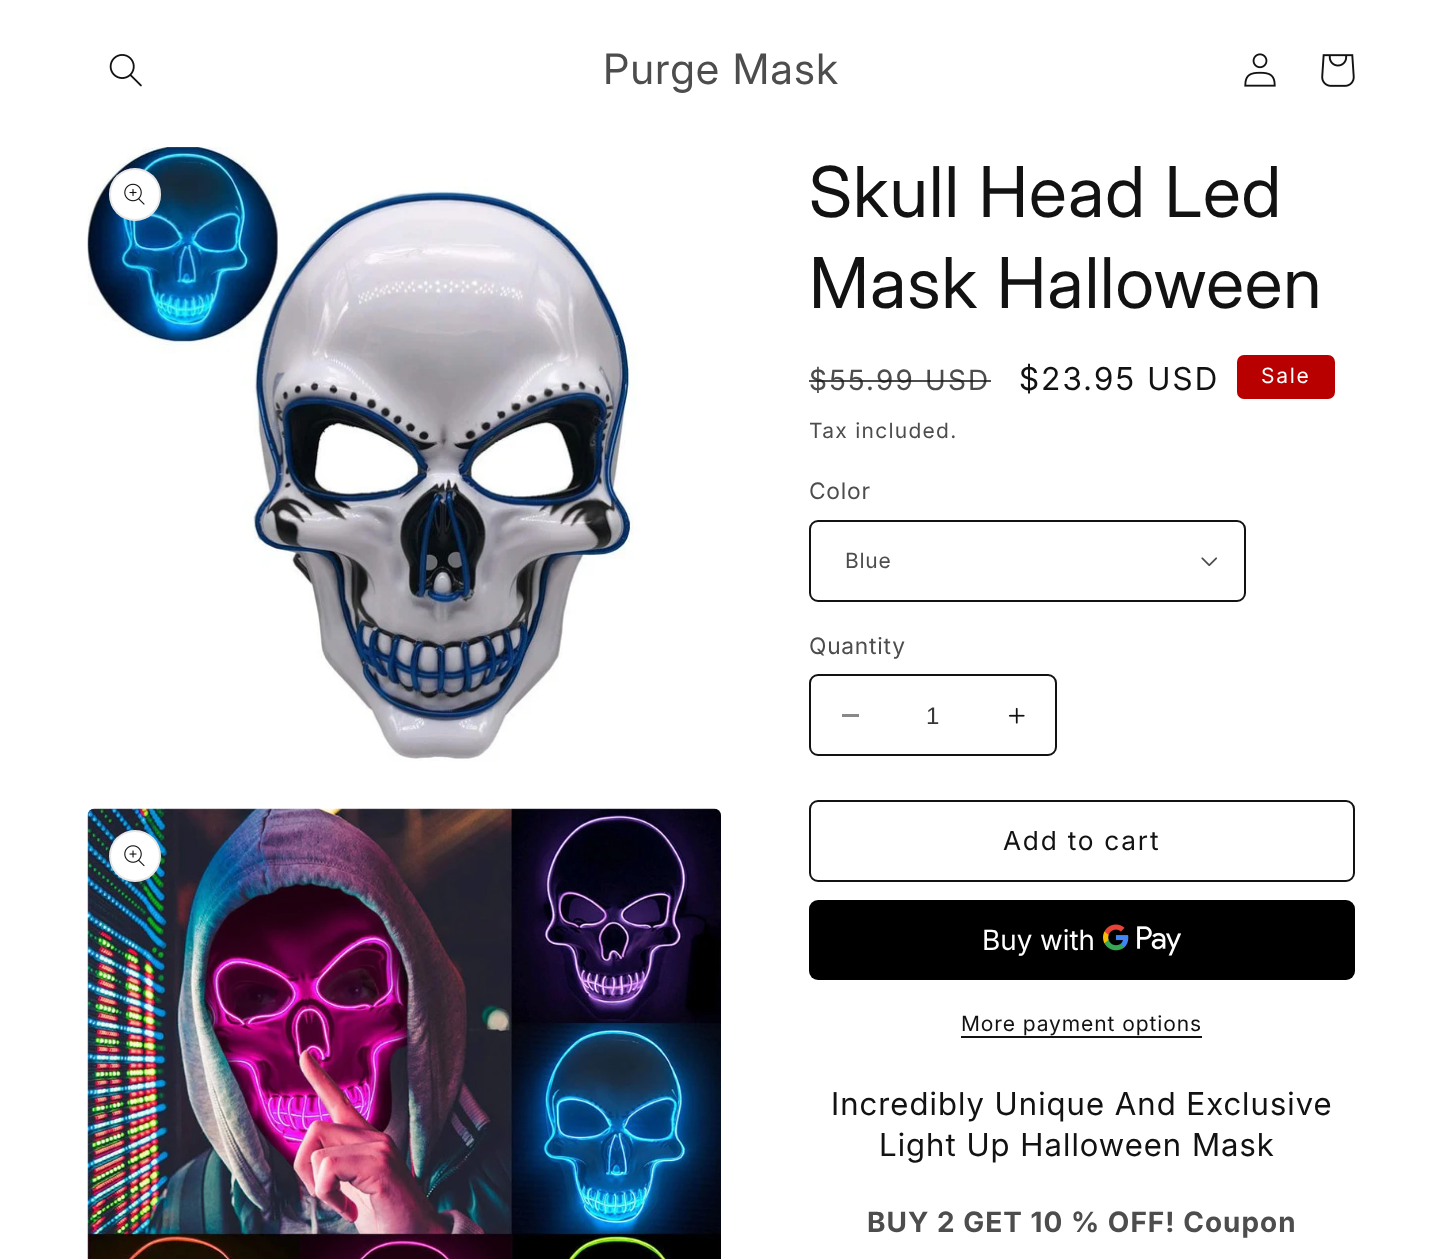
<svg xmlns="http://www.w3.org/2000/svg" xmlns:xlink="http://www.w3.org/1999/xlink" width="1441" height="1259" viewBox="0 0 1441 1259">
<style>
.cls-1{font:42px 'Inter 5';letter-spacing:1.05px;fill:#4d4d4d}
.cls-2{font:70px Inter;letter-spacing:1.05px;fill:#121212}
.cls-3{font:28px 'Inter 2';letter-spacing:2.25px;fill:#4d4d4d}
.cls-4{font:31.5px 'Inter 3';letter-spacing:2.25px;fill:#121212}
.cls-5{font:21px 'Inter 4';letter-spacing:1.75px;fill:#ffffff}
.cls-6{font:21px 'Inter 4';letter-spacing:1.25px;fill:#4d4d4d}
.cls-7{font:22.75px 'Inter 4';letter-spacing:0.75px;fill:#4d4d4d}
.cls-8{font:21px 'Inter 4';letter-spacing:0.75px;fill:#4d4d4d}
.cls-9{font:24px Liberation Sans;fill:#363636}
.cls-10{font:26.25px 'Inter 4';letter-spacing:1.75px;fill:#121212}
.cls-11{font:28px 'Inter 2';fill:#ffffff}
.cls-12{font:21px 'Inter 4';letter-spacing:0.9px;fill:#121212}
.cls-13{font:31.5px 'Inter 3';letter-spacing:1.05px;fill:#121212}
.cls-14{font:bold 28px Inter;letter-spacing:1.05px;fill:#4d4d4d}
</style>
<rect width="100%" height="100%" fill="#ffffff"/>
<image xlink:href="image0.png" x="109" y="54" width="33" height="33"/>
<image xlink:href="image1.png" x="1244" y="53" width="32" height="34"/>
<image xlink:href="image2.png" x="1321" y="54" width="34" height="33"/>
<image xlink:href="image3.png" x="87" y="147" width="551" height="614"/>
<rect fill="#ffffff" x="109" y="168" width="52" height="53" rx="26"/>
<rect fill="none" stroke="#121212" stroke-opacity="0.1" stroke-width="2" x="110" y="169" width="50" height="51" rx="25"/>
<image xlink:href="image4.png" x="124" y="183" width="21" height="22"/>
<image xlink:href="image5.png" x="87" y="808" width="634" height="451"/>
<circle fill="#ffffff" cx="135" cy="856" r="26"/>
<circle fill="none" stroke="#121212" stroke-opacity="0.1" stroke-width="2" cx="135" cy="856" r="25"/>
<image xlink:href="image6.png" x="124" y="845" width="21" height="22"/>
<rect fill="#b90000" stroke="#b90000" stroke-width="2" x="1238" y="356" width="96" height="42" rx="6"/>
<image xlink:href="image7.png" x="1201" y="557" width="17" height="10"/>
<rect fill="none" stroke="#121212" stroke-width="2" x="810" y="521" width="435" height="80" rx="8"/>
<rect fill="#898989" x="842" y="714" width="17" height="3"/>
<image xlink:href="image8.png" x="1008" y="707" width="17" height="17"/>
<rect fill="none" stroke="#121212" stroke-width="2" x="810" y="675" width="246" height="80" rx="8"/>
<rect fill="none" stroke="#121212" stroke-width="2" x="810" y="801" width="544" height="80" rx="8"/>
<rect fill="#000000" x="809" y="900" width="546" height="80" rx="9"/>
<image xlink:href="image9.png" x="1103" y="924" width="78" height="32"/>
<rect fill="#121212" x="961" y="1036" width="241" height="2"/>
<text class="cls-1" x="603" y="84">Purge Mask</text>
<text class="cls-2"><tspan x="809" y="217">Skull Head Led</tspan><tspan x="809" y="308">Mask Halloween</tspan></text>
<text class="cls-3" x="809" y="390">$55.99 USD</text>
<rect fill="#121212" fill-opacity="0.75" x="809" y="380" width="182" height="2"/>
<text class="cls-4" x="1019" y="390">$23.95 USD</text>
<text class="cls-5" x="1261" y="383">Sale</text>
<text class="cls-6" x="809" y="438">Tax included.</text>
<text class="cls-7" x="809" y="499">Color</text>
<text class="cls-8" x="845" y="568">Blue</text>
<text class="cls-7" x="809" y="654">Quantity</text>
<text class="cls-9" x="926" y="724">1</text>
<text class="cls-10" x="1003" y="850">Add to cart</text>
<text class="cls-11" x="982" y="950">Buy with</text>
<text class="cls-12" x="961" y="1031">More payment options</text>
<text class="cls-13" x="831" y="1115">Incredibly Unique And Exclusive</text>
<text class="cls-13" x="879" y="1156">Light Up Halloween Mask</text>
<text class="cls-14" x="867" y="1232">BUY 2 GET 10 % OFF! Coupon</text>
</svg>
